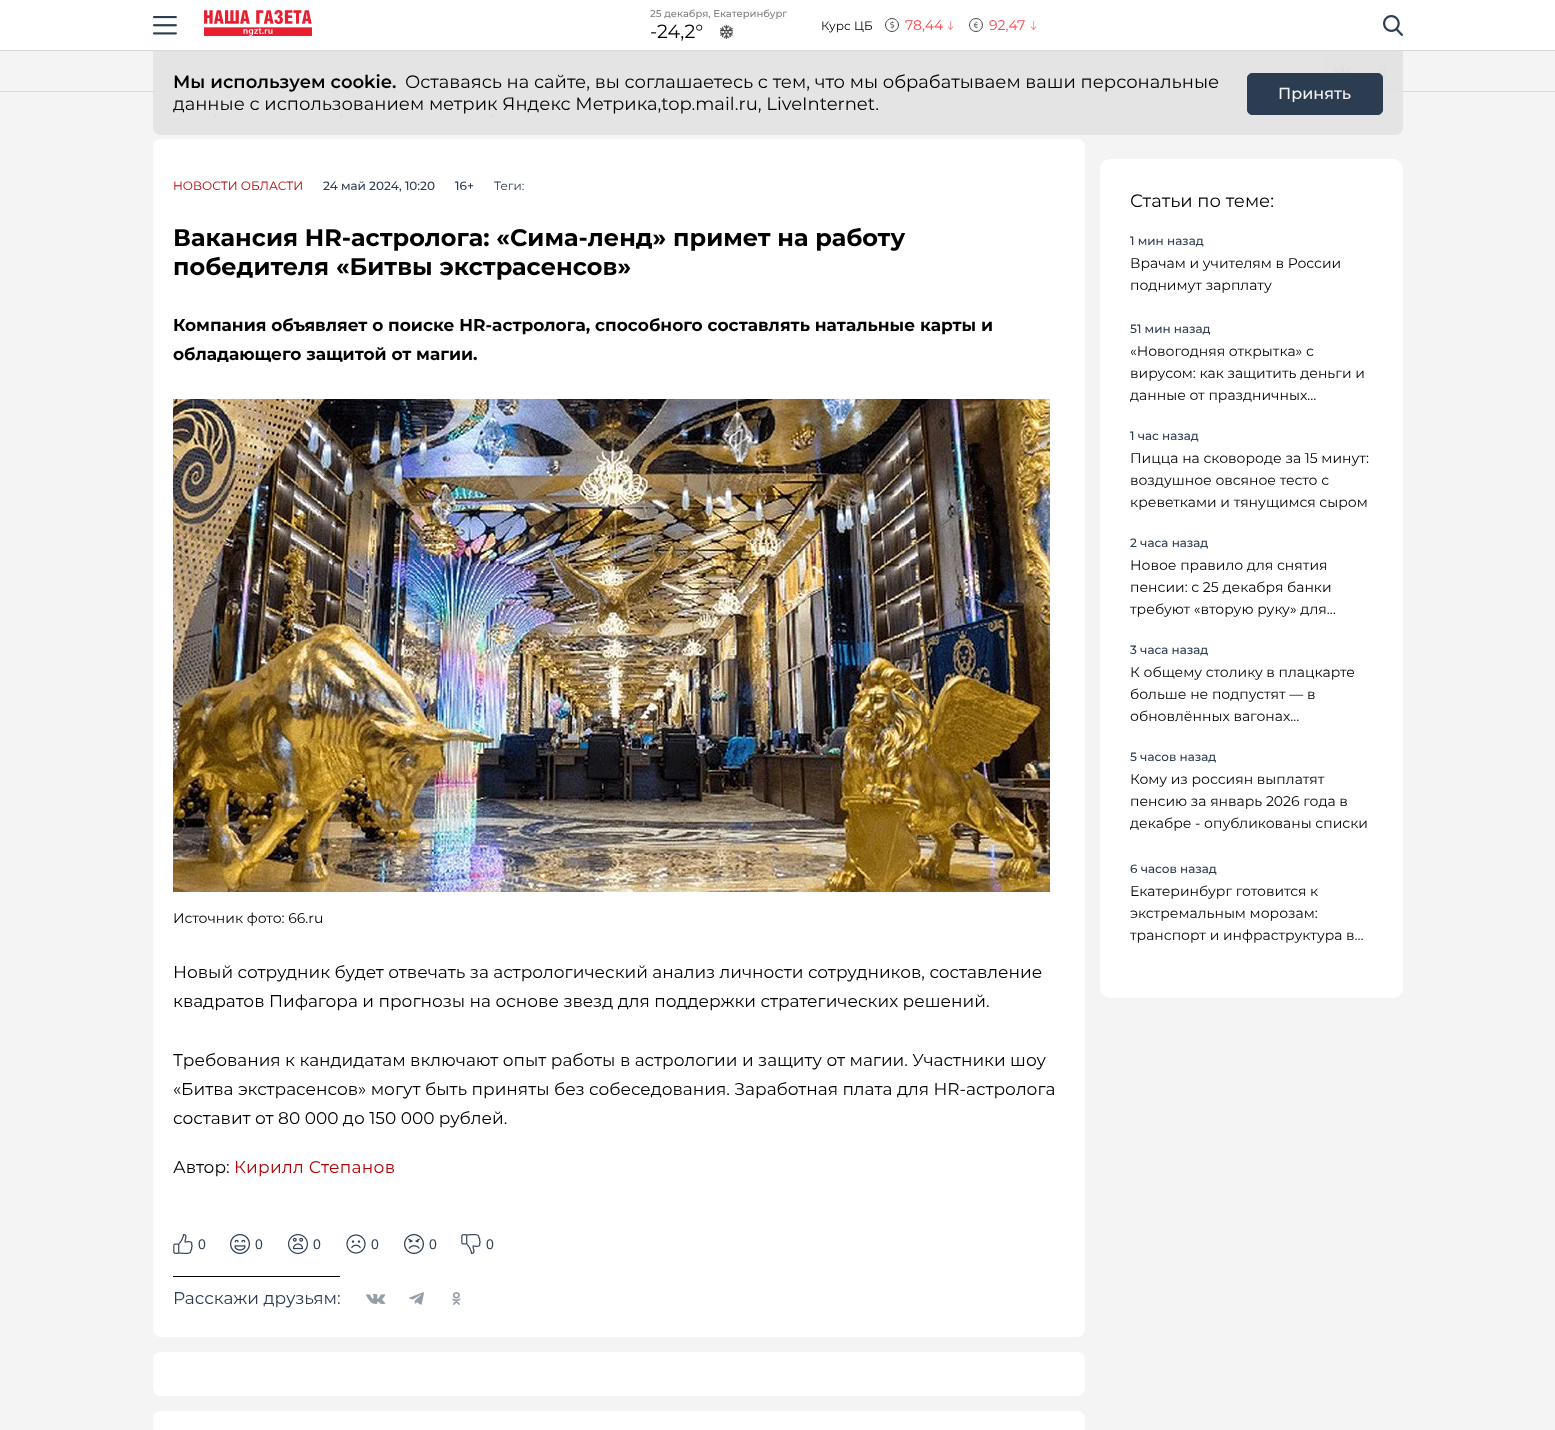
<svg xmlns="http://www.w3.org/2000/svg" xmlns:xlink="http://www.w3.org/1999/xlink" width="1555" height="1430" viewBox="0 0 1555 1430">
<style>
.cls-1{font:500 10px Montserrat;fill:#808080}
.cls-2{font:19px Montserrat;fill:#000000}
.cls-3{font:12px Montserrat;fill:#000000}
.cls-4{font:14px Montserrat;fill:#fe4349}
.cls-5{font:600 18px Montserrat;fill:#000000}
.cls-6{font:18px Montserrat;fill:#000000}
.cls-7{font:500 16px Montserrat;fill:#f4f4f4}
.cls-8{font:12px Montserrat;fill:#b30000}
.cls-9{font:500 12px Montserrat;fill:#2c3d52}
.cls-10{font:12px Montserrat;fill:#2c3d52}
.cls-11{font:bold 24px Montserrat;fill:#000000}
.cls-12{font:bold 17px Montserrat;fill:#000000}
.cls-13{font:14px Montserrat;fill:#000000}
.cls-14{font:17px Montserrat;fill:#000000}
.cls-15{font:17px Montserrat;letter-spacing:0.3px;fill:#b30000}
.cls-16{font:14px Liberation Sans;fill:#2c3d52}
.cls-17{font:17px Montserrat;fill:#2c3d52}
</style>
<defs>
<clipPath id="clip1"><rect x="1130" y="340" width="243" height="63"/></clipPath>
<clipPath id="clip2"><rect x="1130" y="768" width="243" height="63"/></clipPath>
</defs>
<rect width="100%" height="100%" fill="#ffffff"/>
<rect fill="#d8d8d8" x="0" y="50" width="1555" height="1"/>
<image xlink:href="image0.png" x="153" y="16" width="24" height="19"/>
<image xlink:href="image1.png" x="204" y="10" width="108" height="26"/>
<image xlink:href="image2.png" x="720" y="24" width="13" height="15"/>
<image xlink:href="image3.png" x="948" y="21" width="5" height="9"/>
<image xlink:href="image4.png" x="890" y="21" width="5" height="8"/>
<circle fill="none" stroke="#48484c" cx="892" cy="25" r="6.5"/>
<image xlink:href="image3.png" x="1031" y="21" width="5" height="9"/>
<image xlink:href="image5.png" x="973" y="22" width="5" height="6"/>
<circle fill="none" stroke="#48484c" cx="976" cy="25" r="6.5"/>
<image xlink:href="image6.png" x="1383" y="15" width="20" height="21"/>
<rect fill="#f4f4f4" x="0" y="51" width="1555" height="1379"/>
<rect fill="#d8d8d8" x="0" y="91" width="1555" height="1"/>
<rect fill="#e8e9ea" x="1323" y="51" width="80" height="40"/>
<image xlink:href="image7.png" x="1333" y="67" width="20" height="6"/>
<image xlink:href="image8.png" x="1378" y="65" width="9" height="13"/>
<image xlink:href="image9.png" x="213" y="113" width="4" height="6"/>
<image xlink:href="image10.png" x="340" y="114" width="3" height="5"/>
<image xlink:href="image10.png" x="490" y="114" width="3" height="5"/>
<path fill="#e3e3e3" fill-opacity="0.95" d="M153 51H1403V127C1403 131.5 1399.5 135 1395 135H161C156.5 135 153 131.5 153 127Z"/>
<rect fill="#2c3d52" stroke="#2c3d52" x="1247.5" y="73.5" width="135" height="41" rx="4.5"/>
<rect fill="#ffffff" x="153" y="139" width="932" height="1198" rx="8"/>
<image xlink:href="image11.png" x="173" y="399" width="877" height="493"/>
<image xlink:href="image12.png" x="173" y="1234" width="20" height="20"/>
<image xlink:href="image13.png" x="230" y="1234" width="20" height="20"/>
<image xlink:href="image14.png" x="288" y="1234" width="20" height="20"/>
<image xlink:href="image15.png" x="346" y="1234" width="20" height="20"/>
<image xlink:href="image16.png" x="404" y="1234" width="20" height="20"/>
<image xlink:href="image17.png" x="461" y="1234" width="20" height="20"/>
<rect fill="#000000" x="173" y="1276" width="167" height="1"/>
<image xlink:href="image18.png" x="366" y="1294" width="20" height="10"/>
<image xlink:href="image19.png" x="409" y="1292" width="15" height="13"/>
<image xlink:href="image20.png" x="452" y="1292" width="9" height="13"/>
<rect fill="#ffffff" x="153" y="1352" width="932" height="44" rx="8"/>
<rect fill="#ffffff" x="153" y="1411" width="932" height="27" rx="8"/>
<rect fill="#ffffff" x="1100" y="159" width="303" height="839" rx="10"/>
<text class="cls-1" x="650" y="17">25 декабря, Екатеринбург</text>
<text class="cls-2" x="650" y="38">-24,2°</text>
<text class="cls-3" x="821" y="30">Курс ЦБ</text>
<text class="cls-4" x="905" y="30">78,44</text>
<text class="cls-4" x="989" y="30">92,47</text>
<text class="cls-5" x="173" y="88">Мы используем cookie.</text>
<text class="cls-6" x="405" y="88">Оставаясь на сайте, вы соглашаетесь с тем, что мы обрабатываем ваши персональные</text>
<text class="cls-6" x="173" y="110">данные с использованием метрик Яндекс Метрика,top.mail.ru, LiveInternet.</text>
<text class="cls-7" x="1278" y="99">Принять</text>
<text class="cls-8" x="173" y="190">НОВОСТИ ОБЛАСТИ</text>
<text class="cls-9" x="323" y="190">24 май 2024, 10:20</text>
<text class="cls-9" x="455" y="190">16+</text>
<text class="cls-10" x="494" y="190">Теги:</text>
<text class="cls-11"><tspan x="173" y="246">Вакансия HR-астролога: «Сима-ленд» примет на работу</tspan><tspan x="173" y="275">победителя «Битвы экстрасенсов»</tspan></text>
<text class="cls-12"><tspan x="173" y="331">Компания объявляет о поиске HR-астролога, способного составлять натальные карты и</tspan><tspan x="173" y="360">обладающего защитой от магии.</tspan></text>
<text class="cls-13" x="173" y="923">Источник фото: 66.ru</text>
<text class="cls-14"><tspan x="173" y="978">Новый сотрудник будет отвечать за астрологический анализ личности сотрудников, составление</tspan><tspan x="173" y="1007">квадратов Пифагора и прогнозы на основе звезд для поддержки стратегических решений.</tspan></text>
<text class="cls-14"><tspan x="173" y="1066">Требования к кандидатам включают опыт работы в астрологии и защиту от магии. Участники шоу</tspan><tspan x="173" y="1095">«Битва экстрасенсов» могут быть приняты без собеседования. Заработная плата для HR-астролога</tspan><tspan x="173" y="1124">составит от 80 000 до 150 000 рублей.</tspan></text>
<text class="cls-14" x="173" y="1173">Автор:</text>
<text class="cls-15" x="234" y="1173">Кирилл Степанов</text>
<text class="cls-16" x="198" y="1249">0</text>
<text class="cls-16" x="255" y="1249">0</text>
<text class="cls-16" x="313" y="1249">0</text>
<text class="cls-16" x="371" y="1249">0</text>
<text class="cls-16" x="429" y="1249">0</text>
<text class="cls-16" x="486" y="1249">0</text>
<text class="cls-17" x="173" y="1304">Расскажи друзьям:</text>
<text class="cls-6" x="1130" y="207">Статьи по теме:</text>
<text class="cls-9" x="1130" y="245">1 мин назад</text>
<text class="cls-13"><tspan x="1130" y="268">Врачам и учителям в России</tspan><tspan x="1130" y="290">поднимут зарплату</tspan></text>
<text class="cls-9" x="1130" y="333">51 мин назад</text>
<text class="cls-13"><tspan x="1130" y="356">«Новогодняя открытка» с</tspan><tspan x="1130" y="378">вирусом: как защитить деньги и</tspan></text>
<g clip-path="url(#clip1)">
<text class="cls-13" x="1130" y="400">данные от праздничных…</text>
</g>
<text class="cls-9" x="1130" y="440">1 час назад</text>
<text class="cls-13"><tspan x="1130" y="463">Пицца на сковороде за 15 минут:</tspan><tspan x="1130" y="485">воздушное овсяное тесто с</tspan><tspan x="1130" y="507">креветками и тянущимся сыром</tspan></text>
<text class="cls-9" x="1130" y="547">2 часа назад</text>
<text class="cls-13"><tspan x="1130" y="570">Новое правило для снятия</tspan><tspan x="1130" y="592">пенсии: с 25 декабря банки</tspan><tspan x="1130" y="614">требуют «вторую руку» для…</tspan></text>
<text class="cls-9" x="1130" y="654">3 часа назад</text>
<text class="cls-13"><tspan x="1130" y="677">К общему столику в плацкарте</tspan><tspan x="1130" y="699">больше не подпустят — в</tspan><tspan x="1130" y="721">обновлённых вагонах…</tspan></text>
<text class="cls-9" x="1130" y="761">5 часов назад</text>
<text class="cls-13"><tspan x="1130" y="784">Кому из россиян выплатят</tspan><tspan x="1130" y="806">пенсию за январь 2026 года в</tspan></text>
<g clip-path="url(#clip2)">
<text class="cls-13" x="1130" y="828">декабре - опубликованы списки</text>
</g>
<text class="cls-9" x="1130" y="873">6 часов назад</text>
<text class="cls-13"><tspan x="1130" y="896">Екатеринбург готовится к</tspan><tspan x="1130" y="918">экстремальным морозам:</tspan><tspan x="1130" y="940">транспорт и инфраструктура в…</tspan></text>
</svg>
